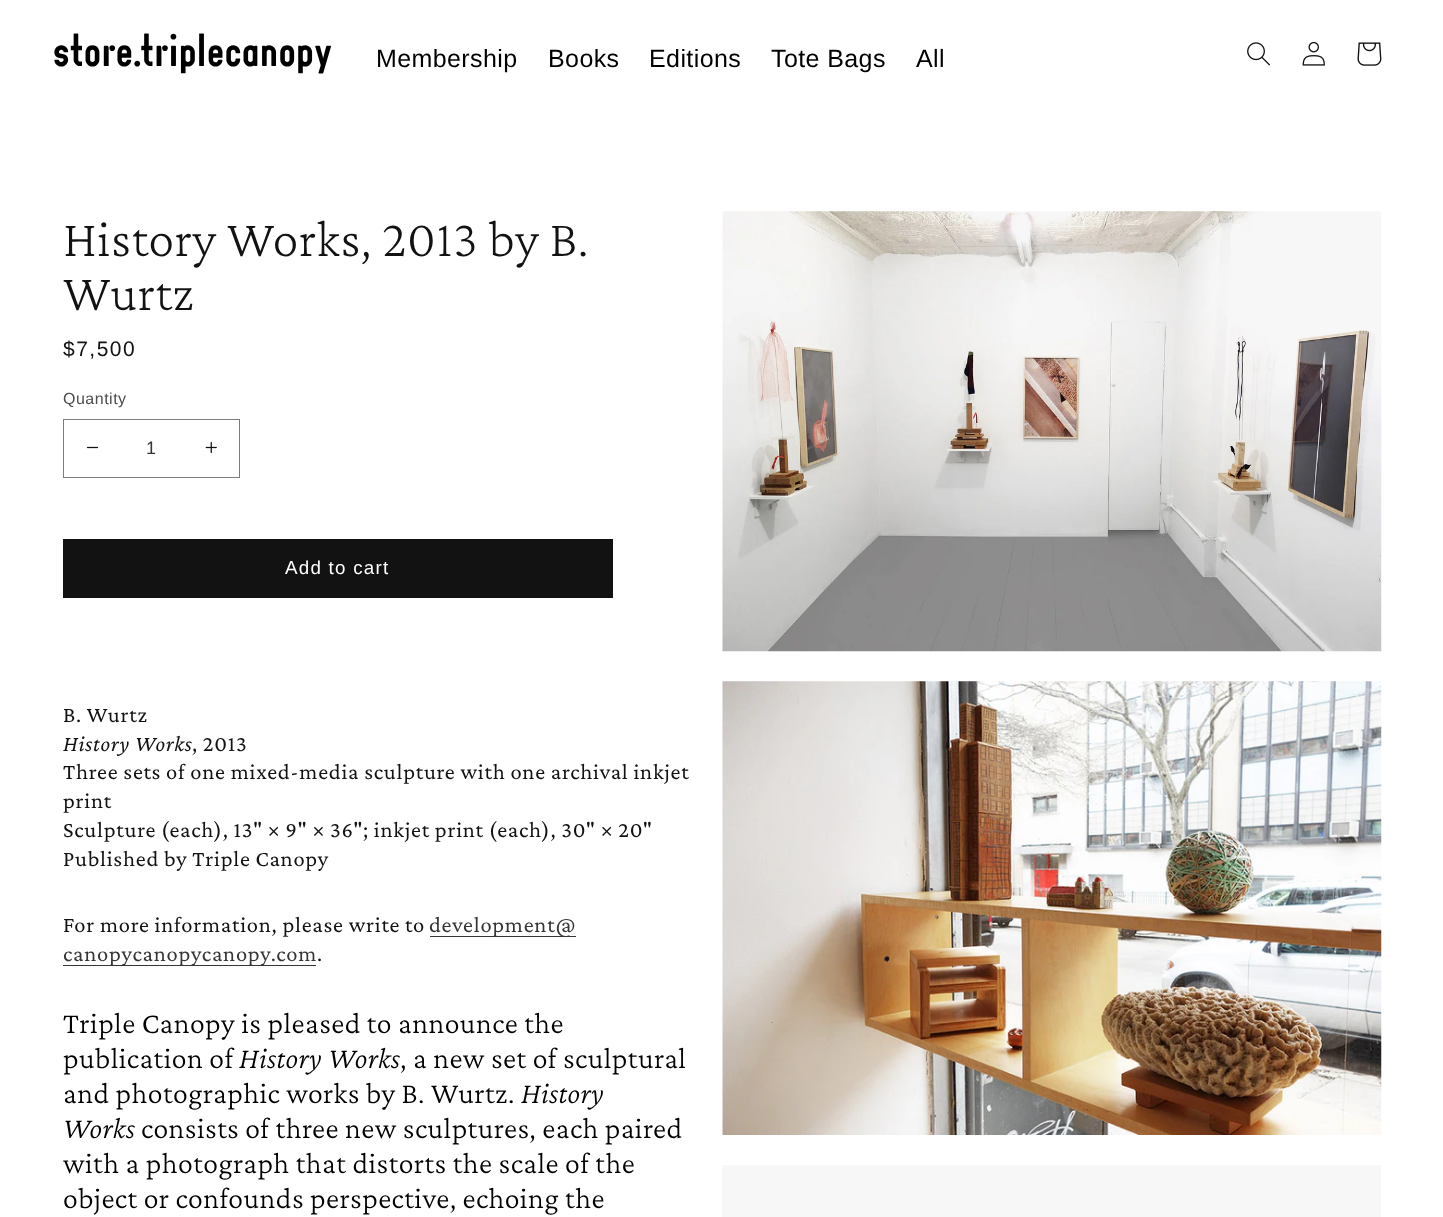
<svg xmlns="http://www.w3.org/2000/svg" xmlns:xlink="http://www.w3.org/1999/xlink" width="1443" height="1217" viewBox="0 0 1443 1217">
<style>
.cls-1{font:37.5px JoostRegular;letter-spacing:0.75px;fill:#000000}
.cls-2{font:25px Liberation Sans;letter-spacing:0.4px;fill:#000000}
.cls-3{font:200 52.5px Crimson Pro;letter-spacing:0.5px;fill:#121212}
.cls-4{font:21px Liberation Sans;letter-spacing:1.5px;fill:#121212}
.cls-5{font:16px Liberation Sans;letter-spacing:0.5px;fill:#4d4d4d}
.cls-6{font:18px Liberation Sans;fill:#353535}
.cls-7{font:18.75px Liberation Sans;letter-spacing:1.25px;fill:#ffffff}
.cls-8{font:22.5px Crimson Pro;letter-spacing:0.75px;fill:#121212}
.cls-9{font:italic 22.5px Crimson Pro;letter-spacing:0.75px;fill:#121212}
.cls-10{font:22.5px Crimson Pro;letter-spacing:0.75px;fill:#353535}
.cls-11{font:300 30px Crimson Pro;letter-spacing:0.45px;fill:#000000}
.cls-12{font:italic 300 30px Crimson Pro;letter-spacing:0.45px;fill:#000000}
</style>
<rect width="100%" height="100%" fill="#ffffff"/>
<image xlink:href="image0.png" x="1247" y="42" width="23" height="24"/>
<image xlink:href="image1.png" x="1302" y="41" width="23" height="25"/>
<image xlink:href="image2.png" x="1357" y="42" width="25" height="24"/>
<image xlink:href="image3.png" x="86" y="446" width="13" height="3"/>
<image xlink:href="image4.png" x="205" y="441" width="12" height="13"/>
<rect fill="none" stroke="#7d7d7d" x="63.5" y="419.5" width="176" height="58"/>
<rect fill="#121212" x="63" y="539" width="550" height="59"/>
<rect fill="#363636" x="430" y="936" width="146" height="1"/>
<rect fill="#363636" x="63" y="965" width="253" height="1"/>
<image xlink:href="image5.png" x="722" y="211" width="660" height="441"/>
<image xlink:href="image6.png" x="722" y="681" width="660" height="454"/>
<rect fill="#f7f7f7" x="722" y="1165" width="659" height="52"/>
<text class="cls-1" x="53" y="66">store.triplecanopy</text>
<text class="cls-2" x="376" y="67">Membership</text>
<text class="cls-2" x="548" y="67">Books</text>
<text class="cls-2" x="649" y="67">Editions</text>
<text class="cls-2" x="771" y="67">Tote Bags</text>
<text class="cls-2" x="916" y="67">All</text>
<text class="cls-3"><tspan x="63" y="256">History Works, 2013 by B.</tspan><tspan x="63" y="310">Wurtz</tspan></text>
<text class="cls-4" x="63" y="356">$7,500</text>
<text class="cls-5" x="63" y="404">Quantity</text>
<text class="cls-6" x="146" y="454">1</text>
<text class="cls-7" x="285" y="574">Add to cart</text>
<text class="cls-8" x="63" y="722">B. Wurtz</text>
<text class="cls-9" x="63" y="751">History Works</text>
<text class="cls-8" x="192" y="751">, 2013</text>
<text class="cls-8"><tspan x="63" y="779">Three sets of one mixed-media sculpture with one archival inkjet</tspan><tspan x="63" y="808">print</tspan><tspan x="63" y="837">Sculpture (each), 13" × 9" × 36"; inkjet print (each), 30" × 20"</tspan><tspan x="63" y="866">Published by Triple Canopy</tspan></text>
<text class="cls-8" x="63" y="932">For more information, please write to</text>
<text class="cls-10" x="429" y="932">development@</text>
<text class="cls-10" x="63" y="961">canopycanopycanopy.com</text>
<text class="cls-8" x="317" y="961">.</text>
<text class="cls-11"><tspan x="63" y="1033">Triple Canopy is pleased to announce the</tspan><tspan x="63" y="1068">publication of</tspan></text>
<text class="cls-12" x="239" y="1068">History Works</text>
<text class="cls-11" x="400" y="1068">, a new set of sculptural</text>
<text class="cls-11" x="63" y="1103">and photographic works by B. Wurtz.</text>
<text class="cls-12" x="521" y="1103">History</text>
<text class="cls-12" x="63" y="1138">Works</text>
<text class="cls-11" x="141" y="1138">consists of three new sculptures, each paired</text>
<text class="cls-11"><tspan x="63" y="1173">with a photograph that distorts the scale of the</tspan><tspan x="63" y="1208">object or confounds perspective, echoing the</tspan></text>
</svg>
